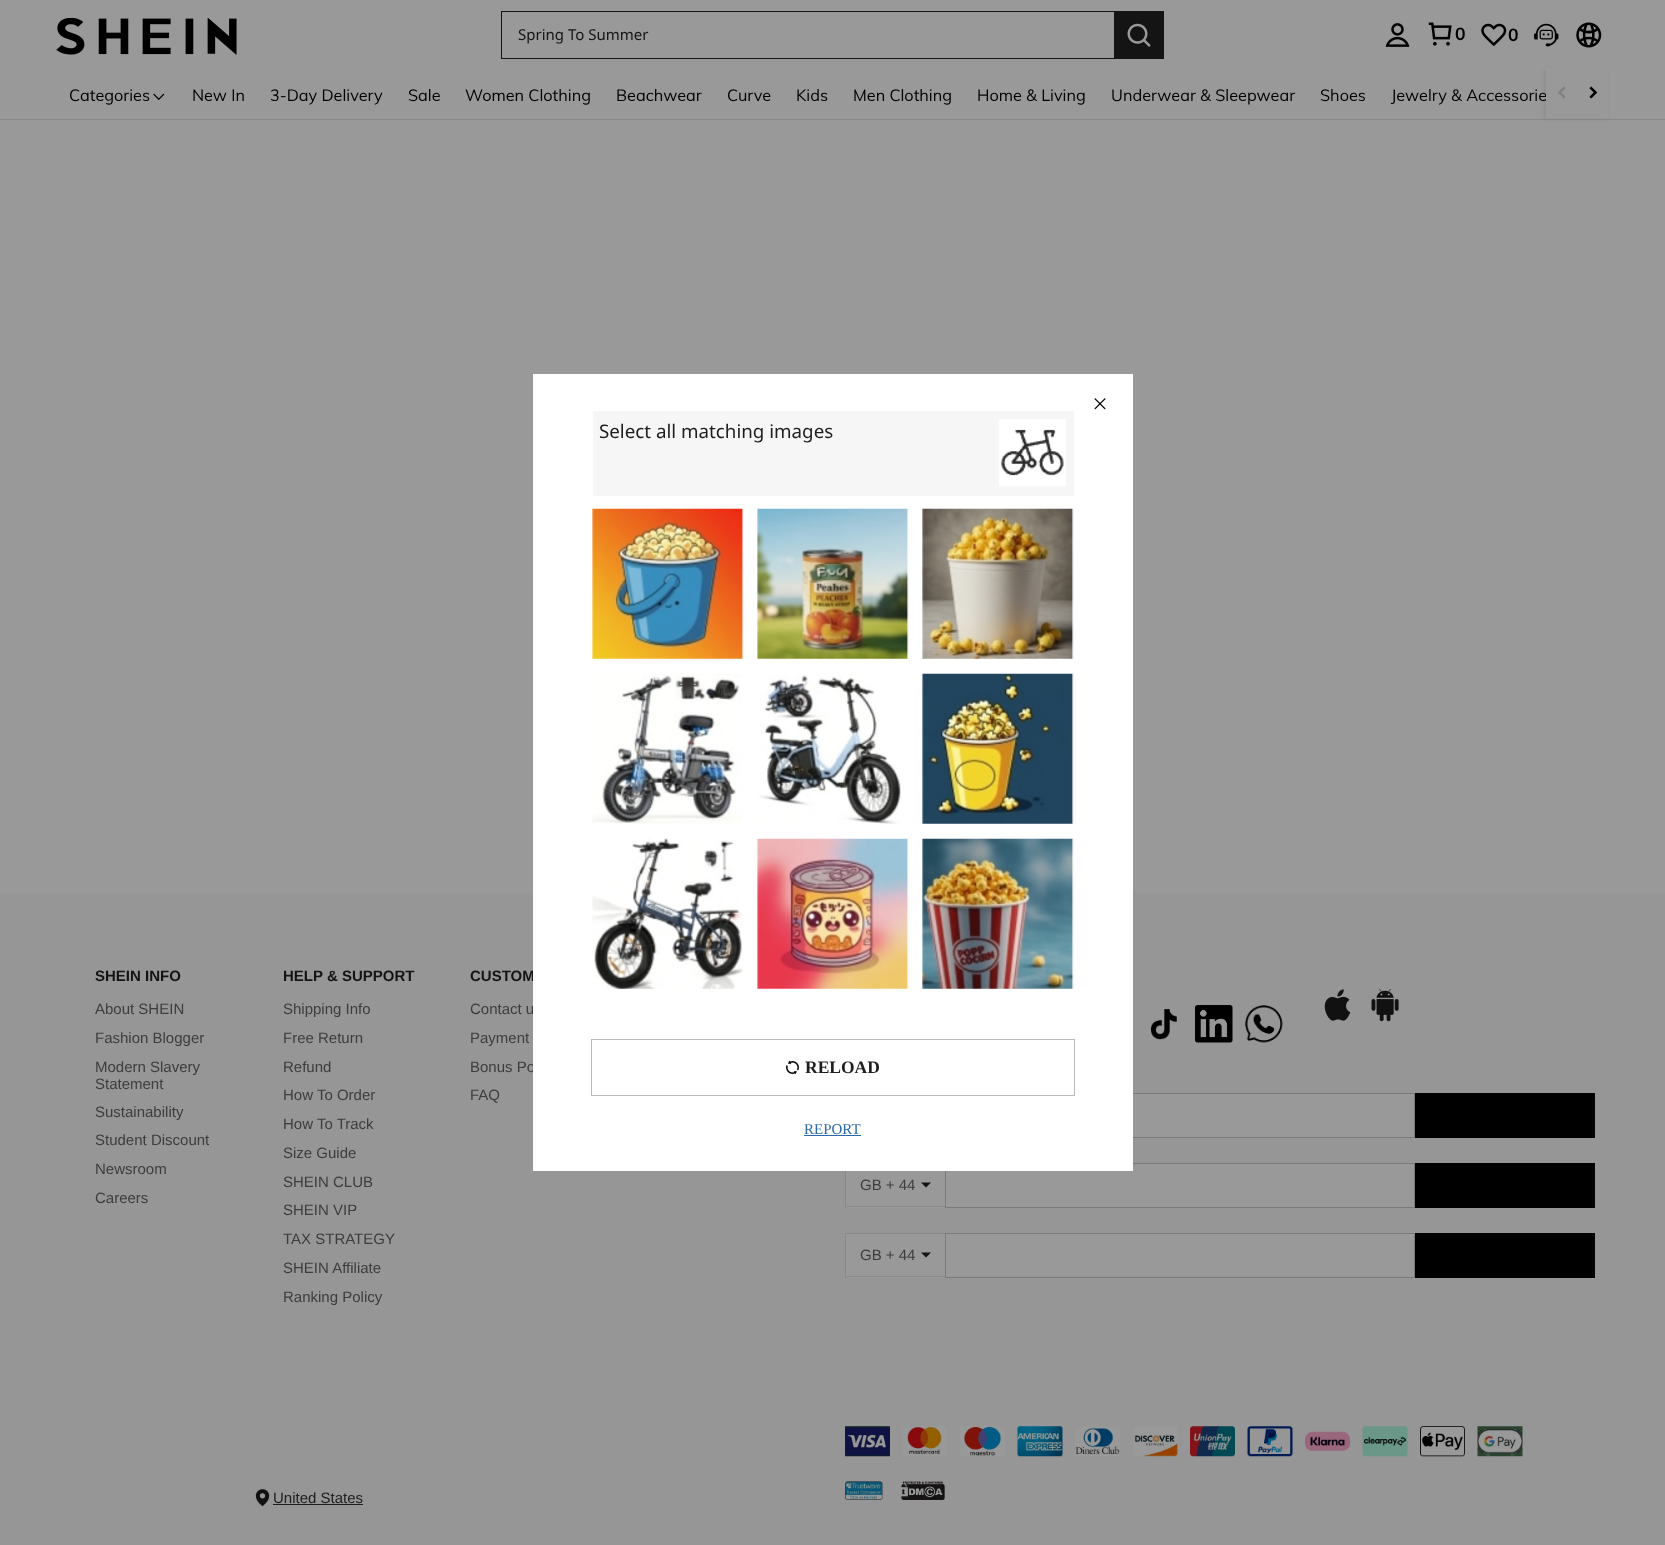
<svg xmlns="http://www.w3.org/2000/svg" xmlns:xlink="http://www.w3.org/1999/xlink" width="1665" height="1545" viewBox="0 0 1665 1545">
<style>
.cls-1{font:15px Noto Sans;fill:#141414}
.cls-2{font:bold 17.5px Muli;fill:#000000}
.cls-3{font:16.25px Muli;fill:#000000}
.cls-4{font:bold 15px Liberation Sans;fill:#141414}
.cls-5{font:15px Liberation Sans;fill:#3d3d3d}
.cls-6{font:15px Liberation Sans;fill:#1e1e1e}
.cls-7{font:18.75px Noto Sans;fill:#1e1e1e}
.cls-8{font:bold 17.5px Liberation Serif;fill:#1e1e1e}
.cls-9{font:15px Liberation Serif;fill:#2d68a8}
</style>
<rect width="100%" height="100%" fill="#999999"/>
<rect fill="#898989" x="0" y="119" width="1665" height="1"/>
<rect fill="#000000" fill-opacity="0.08" filter="blur(2px)" x="1544" y="70" width="62" height="49"/>
<rect fill="#999999" x="1544" y="68" width="62" height="2"/>
<image xlink:href="image0.png" x="56" y="18" width="181" height="37"/>
<rect fill="#141414" x="501" y="11" width="613" height="1"/>
<rect fill="#141414" x="501" y="58" width="613" height="1"/>
<rect fill="#141414" x="501" y="11" width="1" height="48"/>
<rect fill="#141414" x="1114" y="11" width="50" height="48"/>
<image xlink:href="image1.png" x="1127" y="23" width="24" height="24"/>
<image xlink:href="image2.png" x="1385" y="23" width="25" height="24"/>
<image xlink:href="image3.png" x="1428" y="22" width="24" height="24"/>
<image xlink:href="image4.png" x="1481" y="23" width="26" height="24"/>
<image xlink:href="image5.png" x="1534" y="23" width="25" height="24"/>
<image xlink:href="image6.png" x="1576" y="22" width="26" height="26"/>
<image xlink:href="image7.png" x="153" y="93" width="12" height="7"/>
<rect fill="#969696" x="0" y="893" width="1665" height="652"/>
<image xlink:href="image10.png" x="1150" y="1009" width="27" height="31"/>
<image xlink:href="image11.png" x="1195" y="1005" width="38" height="38"/>
<image xlink:href="image12.png" x="1245" y="1005" width="38" height="38"/>
<image xlink:href="image13.png" x="1324" y="989" width="27" height="32"/>
<image xlink:href="image14.png" x="1371" y="988" width="28" height="34"/>
<rect fill="#999999" x="1133" y="1094" width="281" height="43"/>
<rect fill="none" stroke="#7a7a7a" x="845.5" y="1093.5" width="569" height="44"/>
<rect fill="#000000" x="1415" y="1093" width="180" height="45"/>
<rect fill="#999999" x="846" y="1171" width="99" height="37"/>
<rect fill="#898989" x="845" y="1206" width="100" height="1"/>
<rect fill="#898989" x="845" y="1163" width="1" height="45"/>
<path fill="#141414" d="M921 1182.5H931L926 1187.5Z"/>
<rect fill="#999999" stroke="#7a7a7a" x="945.5" y="1163.5" width="469" height="44"/>
<rect fill="#000000" x="1415" y="1163" width="180" height="45"/>
<rect fill="#999999" x="846" y="1234" width="99" height="44"/>
<rect fill="#898989" x="845" y="1233" width="100" height="1"/>
<rect fill="#898989" x="845" y="1276" width="100" height="1"/>
<rect fill="#898989" x="845" y="1233" width="1" height="45"/>
<path fill="#141414" d="M921 1252.5H931L926 1257.5Z"/>
<rect fill="#999999" stroke="#7a7a7a" x="945.5" y="1233.5" width="469" height="44"/>
<rect fill="#000000" x="1415" y="1233" width="180" height="45"/>
<image xlink:href="image15.png" x="845" y="1426" width="45" height="31"/>
<image xlink:href="image16.png" x="903" y="1426" width="44" height="30"/>
<image xlink:href="image17.png" x="960" y="1426" width="45" height="30"/>
<image xlink:href="image18.png" x="1017" y="1426" width="46" height="31"/>
<image xlink:href="image19.png" x="1075" y="1427" width="45" height="29"/>
<image xlink:href="image20.png" x="1133" y="1427" width="45" height="30"/>
<image xlink:href="image21.png" x="1190" y="1426" width="45" height="31"/>
<image xlink:href="image22.png" x="1247" y="1426" width="46" height="31"/>
<image xlink:href="image23.png" x="1305" y="1431" width="45" height="20"/>
<image xlink:href="image24.png" x="1362" y="1426" width="46" height="31"/>
<image xlink:href="image25.png" x="1420" y="1426" width="45" height="31"/>
<image xlink:href="image26.png" x="1477" y="1426" width="46" height="31"/>
<image xlink:href="image27.png" x="255" y="1489" width="15" height="18"/>
<rect fill="#1e1e1e" x="273" y="1504" width="90" height="1"/>
<image xlink:href="image28.png" x="845" y="1481" width="38" height="19"/>
<image xlink:href="image29.png" x="901" y="1481" width="44" height="19"/>
<rect fill="#000000" fill-opacity="0.3" filter="blur(0.5px)" x="533" y="374" width="600" height="797"/>
<text class="cls-1" x="518" y="40">Spring To Summer</text>
<text class="cls-2" x="1455" y="40">0</text>
<text class="cls-2" x="1508" y="41">0</text>
<text class="cls-3" x="69" y="101">Categories</text>
<text class="cls-3" x="192" y="101">New In</text>
<text class="cls-3" x="270" y="101">3-Day Delivery</text>
<text class="cls-3" x="408" y="101">Sale</text>
<text class="cls-3" x="465" y="101">Women Clothing</text>
<text class="cls-3" x="616" y="101">Beachwear</text>
<text class="cls-3" x="727" y="101">Curve</text>
<text class="cls-3" x="796" y="101">Kids</text>
<text class="cls-3" x="853" y="101">Men Clothing</text>
<text class="cls-3" x="977" y="101">Home &amp; Living</text>
<text class="cls-3" x="1111" y="101">Underwear &amp; Sleepwear</text>
<text class="cls-3" x="1320" y="101">Shoes</text>
<text class="cls-3" x="1391" y="101">Jewelry &amp; Accessorie</text>
<rect fill="#999999" x="1546" y="70" width="62" height="49"/>
<image xlink:href="image8.png" x="1558" y="86" width="8" height="13"/>
<image xlink:href="image9.png" x="1589" y="86" width="9" height="13"/>
<text class="cls-4" x="95" y="981">SHEIN INFO</text>
<text class="cls-5"><tspan x="95" y="1014">About SHEIN</tspan><tspan x="95" y="1043">Fashion Blogger</tspan><tspan x="95" y="1072">Modern Slavery</tspan><tspan x="95" y="1089">Statement</tspan><tspan x="95" y="1117">Sustainability</tspan><tspan x="95" y="1145">Student Discount</tspan><tspan x="95" y="1174">Newsroom</tspan><tspan x="95" y="1203">Careers</tspan></text>
<text class="cls-4" x="283" y="981">HELP &amp; SUPPORT</text>
<text class="cls-5"><tspan x="283" y="1014">Shipping Info</tspan><tspan x="283" y="1043">Free Return</tspan><tspan x="283" y="1072">Refund</tspan><tspan x="283" y="1100">How To Order</tspan><tspan x="283" y="1129">How To Track</tspan><tspan x="283" y="1158">Size Guide</tspan><tspan x="283" y="1187">SHEIN CLUB</tspan><tspan x="283" y="1215">SHEIN VIP</tspan><tspan x="283" y="1244">TAX STRATEGY</tspan><tspan x="283" y="1273">SHEIN Affiliate</tspan><tspan x="283" y="1302">Ranking Policy</tspan></text>
<text class="cls-4" x="470" y="981">CUSTOM</text>
<text class="cls-5"><tspan x="470" y="1014">Contact u</tspan><tspan x="470" y="1043">Payment</tspan><tspan x="470" y="1072">Bonus Po</tspan><tspan x="470" y="1100">FAQ</tspan></text>
<text class="cls-5" x="860" y="1190">GB + 44</text>
<text class="cls-5" x="860" y="1260">GB + 44</text>
<text class="cls-6" x="273" y="1503">United States</text>
<rect fill="#ffffff" x="533" y="374" width="600" height="797"/>
<image xlink:href="image30.png" x="1094" y="398" width="12" height="12"/>
<rect fill="#f6f6f6" x="593" y="411" width="481" height="85"/>
<text class="cls-7" x="599" y="438">Select all matching images</text>
<rect fill="#ffffff" x="999" y="419" width="67" height="67"/>
<image xlink:href="image31.png" x="1001" y="429" width="63" height="47"/>
<image xlink:href="image32.png" x="592" y="508" width="152" height="151"/>
<image xlink:href="image33.png" x="757" y="508" width="152" height="151"/>
<image xlink:href="image34.png" x="922" y="508" width="152" height="151"/>
<image xlink:href="image35.png" x="592" y="674" width="150" height="150"/>
<image xlink:href="image36.png" x="759" y="674" width="142" height="150"/>
<image xlink:href="image37.png" x="922" y="673" width="152" height="151"/>
<image xlink:href="image38.png" x="592" y="838" width="151" height="151"/>
<image xlink:href="image39.png" x="757" y="838" width="152" height="151"/>
<image xlink:href="image40.png" x="922" y="838" width="152" height="151"/>
<rect fill="none" stroke="#bbbbbb" x="591.5" y="1039.5" width="483" height="56"/>
<image xlink:href="image41.png" x="786" y="1060" width="13" height="15"/>
<text class="cls-8" x="805" y="1073">RELOAD</text>
<text class="cls-9" x="804" y="1134">REPORT</text>
<rect fill="#2d68a8" x="804" y="1135" width="57" height="1"/>
</svg>
